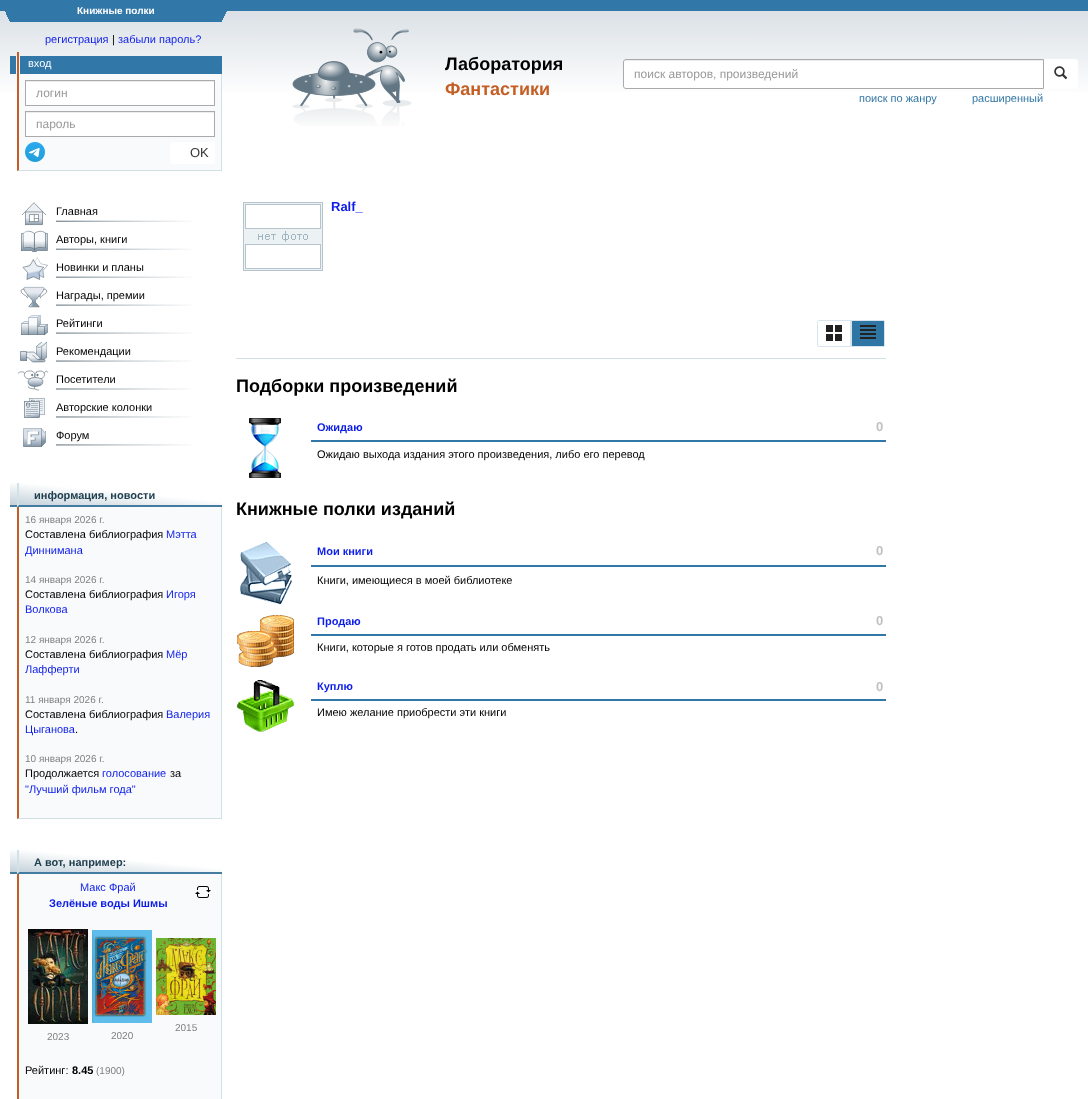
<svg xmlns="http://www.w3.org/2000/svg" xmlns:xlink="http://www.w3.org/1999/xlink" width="1088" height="1099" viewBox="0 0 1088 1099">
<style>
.cls-1{font:bold 10px Liberation Sans;fill:#ffffff}
.cls-2{font:11px Liberation Sans;fill:#0c1de9}
.cls-3{font:11px Liberation Sans;fill:#000000}
.cls-4{font:11px Liberation Sans;fill:#ffffff}
.cls-5{font:12px Liberation Sans;fill:#999999}
.cls-6{font:13px Liberation Sans;fill:#333333}
.cls-7{font:bold 18px Liberation Sans;fill:#000000}
.cls-8{font:bold 18px Liberation Sans;fill:#c45e24}
.cls-9{font:11px Liberation Sans;fill:#3076a5}
.cls-10{font:bold 11px Liberation Sans;fill:#204050}
.cls-11{font:10px Liberation Sans;fill:#808080}
.cls-12{font:bold 11px Liberation Sans;fill:#0c1de9}
.cls-13{font:bold 11px Liberation Sans;fill:#000000}
.cls-14{font:bold 13px Liberation Sans;fill:#0c1de9}
.cls-15{font:bold 13px Liberation Sans;fill:#c0c0c0}
</style>
<defs>
<linearGradient id="g1" gradientUnits="userSpaceOnUse" x1="544" y1="0" x2="544" y2="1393"><stop offset="0" stop-color="#d6dde3"/><stop offset="0.07" stop-color="#ffffff"/></linearGradient>
<linearGradient id="g2" gradientUnits="userSpaceOnUse" x1="-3.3" y1="15" x2="13" y2="7.2"><stop offset="0" stop-color="#000000" stop-opacity="0"/><stop offset="0.5" stop-color="#3177a8" stop-opacity="0"/><stop offset="0.5" stop-color="#3177a8"/><stop offset="1" stop-color="#3177a8"/></linearGradient>
<linearGradient id="g3" gradientUnits="userSpaceOnUse" x1="235" y1="15" x2="219" y2="7.2"><stop offset="0" stop-color="#000000" stop-opacity="0"/><stop offset="0.5" stop-color="#3177a8" stop-opacity="0"/><stop offset="0.5" stop-color="#3177a8"/><stop offset="1" stop-color="#3177a8"/></linearGradient>
<linearGradient id="g4" gradientUnits="userSpaceOnUse" x1="114" y1="516" x2="118" y2="474"><stop offset="0" stop-color="#c0cfd8"/><stop offset="0.59" stop-color="#ffffff"/></linearGradient>
<linearGradient id="g5" gradientUnits="userSpaceOnUse" x1="114" y1="883" x2="118" y2="841"><stop offset="0" stop-color="#c0cfd8"/><stop offset="0.59" stop-color="#ffffff"/></linearGradient>
</defs>
<rect width="100%" height="100%" fill="#ffffff"/>
<rect fill="url(#g1)" x="0" y="11" width="1088" height="81"/>
<rect fill="#3177a8" x="0" y="0" width="1088" height="11"/>
<rect fill="url(#g2)" x="5" y="11" width="5" height="10"/>
<rect fill="#3178a8" x="10" y="11" width="212" height="11"/>
<rect fill="url(#g3)" x="222" y="11" width="5" height="9"/>
<rect fill="#3178a8" x="10" y="56" width="6" height="18"/>
<rect fill="#c45e24" x="17" y="52" width="2" height="22"/>
<rect fill="#3178a8" x="20" y="56" width="202" height="18"/>
<rect fill="#f9fafb" x="17" y="74" width="204" height="97"/>
<rect fill="#d2e0e8" x="221" y="74" width="1" height="97"/>
<path fill="#d2e0e8" d="M222 171H17L19 170H221Z"/>
<path fill="#c45e24" d="M17 171V74H19V170Z"/>
<rect fill="#ffffff" x="26" y="82" width="188" height="23"/>
<rect fill="#ececec" x="26" y="81" width="188" height="1"/>
<rect fill="none" stroke="#aaaaaa" x="25.5" y="80.5" width="189" height="25"/>
<rect fill="#ffffff" x="26" y="113" width="188" height="23"/>
<rect fill="#ececec" x="26" y="112" width="188" height="1"/>
<rect fill="none" stroke="#aaaaaa" x="25.5" y="111.5" width="189" height="25"/>
<image xlink:href="image0.png" x="25" y="142" width="20" height="20"/>
<rect fill="#ffffff" x="170" y="142" width="45" height="22" rx="3"/>
<image xlink:href="image1.png" x="292" y="28" width="120" height="98"/>
<rect fill="#ffffff" x="1043" y="59" width="35" height="30" rx="3"/>
<path fill="#ffffff" d="M626 59H1044V89H626C624.5 89 623 87.5 623 86V62C623 60.5 624.5 59 626 59Z"/>
<path fill="#ececec" d="M626 61H1043V60H626C624 60 624 62 624 63C624 62 625 61 626 61Z"/>
<path fill="none" stroke="#aaaaaa" d="M626 59.5H1043.5V88.5H626C624.5 88.5 623.5 87.5 623.5 86V62C623.5 60.5 624.5 59.5 626 59.5Z"/>
<image xlink:href="image2.png" x="1054" y="66" width="14" height="14"/>
<image xlink:href="image3.png" x="22" y="202" width="171" height="24"/>
<image xlink:href="image4.png" x="21" y="230" width="172" height="22"/>
<image xlink:href="image5.png" x="22" y="257" width="171" height="23"/>
<image xlink:href="image6.png" x="20" y="286" width="172" height="22"/>
<image xlink:href="image7.png" x="21" y="315" width="171" height="20"/>
<image xlink:href="image8.png" x="20" y="341" width="172" height="22"/>
<image xlink:href="image9.png" x="18" y="370" width="173" height="21"/>
<image xlink:href="image10.png" x="24" y="398" width="167" height="20"/>
<image xlink:href="image11.png" x="23" y="428" width="169" height="19"/>
<rect fill="url(#g4)" x="10" y="483" width="212" height="24"/>
<path fill="#447ca1" d="M222 507H17L19 505H222Z"/>
<path fill="#d2e0e8" d="M17 507V483H19V505Z"/>
<rect fill="#447ca1" x="10" y="505" width="7" height="2"/>
<rect fill="#f9fafb" x="17" y="507" width="204" height="312"/>
<rect fill="#d2e0e8" x="221" y="507" width="1" height="312"/>
<path fill="#d2e0e8" d="M222 819H17L19 818H221Z"/>
<path fill="#c45e24" d="M17 819V507H19V818Z"/>
<rect fill="url(#g5)" x="10" y="850" width="212" height="24"/>
<path fill="#447ca1" d="M222 874H17L19 872H222Z"/>
<path fill="#d2e0e8" d="M17 874V850H19V872Z"/>
<rect fill="#447ca1" x="10" y="872" width="7" height="2"/>
<rect fill="#f9fafb" x="19" y="874" width="202" height="225"/>
<rect fill="#d2e0e8" x="221" y="874" width="1" height="225"/>
<path fill="#c45e24" d="M17 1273V874H19V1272Z"/>
<image xlink:href="image12.png" x="195" y="886" width="16" height="12"/>
<image xlink:href="image13.png" x="156" y="938" width="60" height="77"/>
<image xlink:href="image14.png" x="28" y="929" width="60" height="95"/>
<image xlink:href="image15.png" x="92" y="930" width="60" height="93"/>
<image xlink:href="image16.png" x="243" y="202" width="80" height="69"/>
<rect fill="#d2e0e8" x="236" y="358" width="650" height="1"/>
<path fill="none" stroke="#d8e4ee" d="M819 320.5H850.5V346.5H819C818 346.5 817.5 346 817.5 345V322C817.5 321 818 320.5 819 320.5Z"/>
<image xlink:href="image17.png" x="826" y="325" width="16" height="16"/>
<path fill="#3076a5" stroke="#d8e4ee" d="M851.5 320.5H883C884 320.5 884.5 321 884.5 322V345C884.5 346 884 346.5 883 346.5H851.5Z"/>
<image xlink:href="image18.png" x="860" y="325" width="16" height="14"/>
<image xlink:href="image19.png" x="249" y="418" width="32" height="60"/>
<rect fill="#3178a8" x="311" y="440" width="575" height="2"/>
<image xlink:href="image20.png" x="240" y="542" width="52" height="63"/>
<rect fill="#3178a8" x="311" y="565" width="575" height="2"/>
<image xlink:href="image21.png" x="237" y="615" width="57" height="52"/>
<rect fill="#3178a8" x="311" y="634" width="575" height="2"/>
<image xlink:href="image22.png" x="236" y="680" width="58" height="52"/>
<rect fill="#3178a8" x="311" y="699" width="575" height="2"/>
<text class="cls-1" x="77" y="14">Книжные полки</text>
<text class="cls-2" x="45" y="43">регистрация</text>
<text class="cls-3" x="112" y="43">|</text>
<text class="cls-2" x="118" y="43">забыли пароль?</text>
<text class="cls-4" x="28" y="67">вход</text>
<text class="cls-5" x="36" y="97">логин</text>
<text class="cls-5" x="36" y="128">пароль</text>
<text class="cls-6" x="190" y="157">OK</text>
<text class="cls-7" x="445" y="70">Лаборатория</text>
<text class="cls-8" x="445" y="95">Фантастики</text>
<text class="cls-5" x="634" y="78">поиск авторов, произведений</text>
<text class="cls-9" x="859" y="102">поиск по жанру</text>
<text class="cls-9" x="972" y="102">расширенный</text>
<text class="cls-3" x="56" y="215">Главная</text>
<text class="cls-3" x="56" y="243">Авторы, книги</text>
<text class="cls-3" x="56" y="271">Новинки и планы</text>
<text class="cls-3" x="56" y="299">Награды, премии</text>
<text class="cls-3" x="56" y="327">Рейтинги</text>
<text class="cls-3" x="56" y="355">Рекомендации</text>
<text class="cls-3" x="56" y="383">Посетители</text>
<text class="cls-3" x="56" y="411">Авторские колонки</text>
<text class="cls-3" x="56" y="439">Форум</text>
<text class="cls-10" x="34" y="499">информация, новости</text>
<text class="cls-11" x="25" y="523">16 января 2026 г.</text>
<text class="cls-3" x="25" y="538">Составлена библиография</text>
<text class="cls-2" x="166" y="538">Мэтта</text>
<text class="cls-2" x="25" y="554">Диннимана</text>
<text class="cls-11" x="25" y="583">14 января 2026 г.</text>
<text class="cls-3" x="25" y="598">Составлена библиография</text>
<text class="cls-2" x="166" y="598">Игоря</text>
<text class="cls-2" x="25" y="613">Волкова</text>
<text class="cls-11" x="25" y="643">12 января 2026 г.</text>
<text class="cls-3" x="25" y="658">Составлена библиография</text>
<text class="cls-2" x="166" y="658">Мёр</text>
<text class="cls-2" x="25" y="673">Лафферти</text>
<text class="cls-11" x="25" y="703">11 января 2026 г.</text>
<text class="cls-3" x="25" y="718">Составлена библиография</text>
<text class="cls-2" x="166" y="718">Валерия</text>
<text class="cls-2" x="25" y="733">Цыганова</text>
<text class="cls-3" x="75" y="733">.</text>
<text class="cls-11" x="25" y="762">10 января 2026 г.</text>
<text class="cls-3" x="25" y="777">Продолжается</text>
<text class="cls-2" x="102" y="777">голосование</text>
<text class="cls-3" x="170" y="777">за</text>
<text class="cls-2" x="25" y="793">"Лучший фильм года"</text>
<text class="cls-10" x="34" y="866">А вот, например:</text>
<text class="cls-2" x="80" y="891">Макс Фрай</text>
<text class="cls-12" x="49" y="907">Зелёные воды Ишмы</text>
<text class="cls-11" x="175" y="1031">2015</text>
<text class="cls-11" x="47" y="1040">2023</text>
<text class="cls-11" x="111" y="1039">2020</text>
<text class="cls-3" x="25" y="1074">Рейтинг:</text>
<text class="cls-13" x="72" y="1074">8.45</text>
<text class="cls-11" x="96" y="1074">(1900)</text>
<text class="cls-14" x="331" y="211">Ralf_</text>
<text class="cls-7" x="236" y="392">Подборки произведений</text>
<text class="cls-12" x="317" y="431">Ожидаю</text>
<text class="cls-15" x="876" y="431">0</text>
<text class="cls-3" x="317" y="458">Ожидаю выхода издания этого произведения, либо его перевод</text>
<text class="cls-7" x="236" y="515">Книжные полки изданий</text>
<text class="cls-12" x="317" y="555">Мои книги</text>
<text class="cls-15" x="876" y="555">0</text>
<text class="cls-3" x="317" y="584">Книги, имеющиеся в моей библиотеке</text>
<text class="cls-12" x="317" y="625">Продаю</text>
<text class="cls-15" x="876" y="625">0</text>
<text class="cls-3" x="317" y="651">Книги, которые я готов продать или обменять</text>
<text class="cls-12" x="317" y="690">Куплю</text>
<text class="cls-15" x="876" y="691">0</text>
<text class="cls-3" x="317" y="716">Имею желание приобрести эти книги</text>
</svg>
